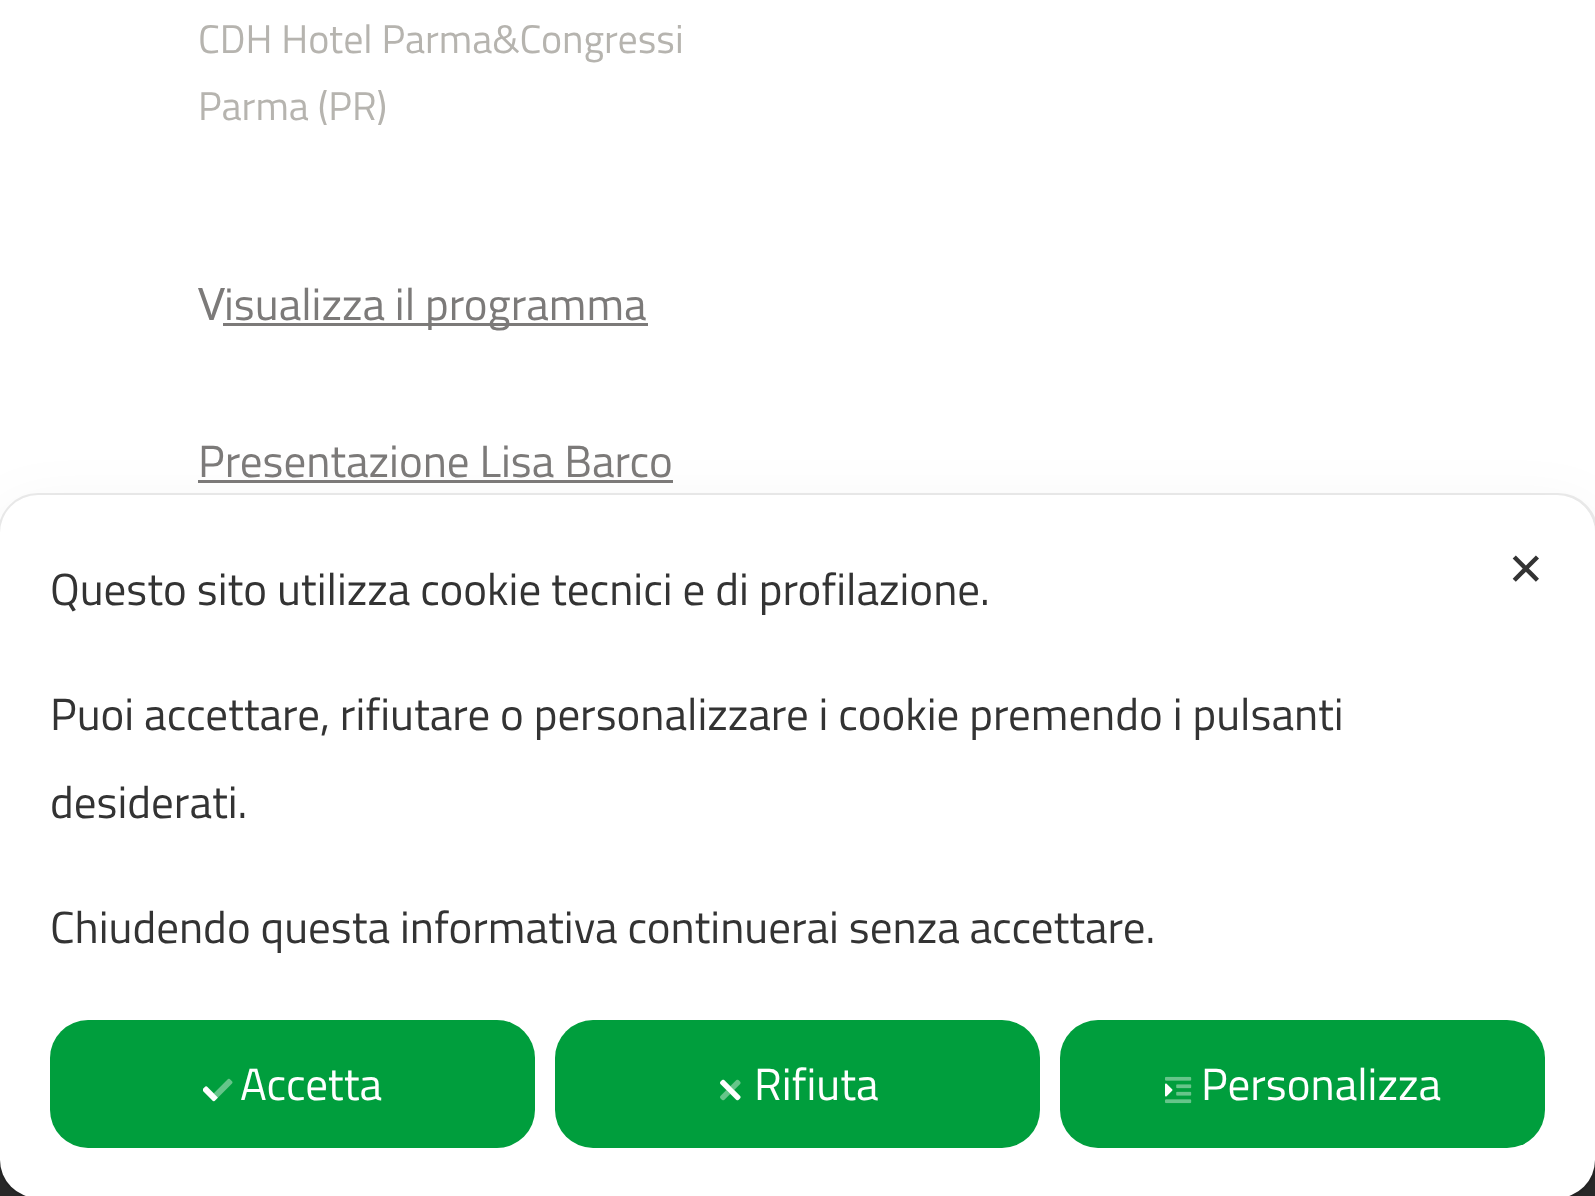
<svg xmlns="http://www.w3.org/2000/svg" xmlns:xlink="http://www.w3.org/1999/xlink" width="1595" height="1196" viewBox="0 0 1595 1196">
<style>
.cls-1{font:40px Titillium Web;fill:#b6b4af}
.cls-2{font:45px Noto Sans;fill:#7c7a79}
.cls-3{font:45px Titillium Web;fill:#7c7a79}
.cls-4{font:45px DejaVu Sans;fill:#333333}
.cls-5{font:45px Titillium Web;fill:#333333}
.cls-6{font:45px Titillium Web;fill:#ffffff}
</style>
<rect width="100%" height="100%" fill="#ffffff"/>
<rect fill="#7c7a79" x="223" y="323" width="425" height="3"/>
<rect fill="#7c7a79" x="198" y="480" width="475" height="3"/>
<rect fill="#292929" x="0" y="1160" width="1595" height="36"/>
<rect fill="none" stroke="#000000" stroke-opacity="0.08" stroke-width="3" x="-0.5" y="494.5" width="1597" height="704" rx="38.5"/>
<rect fill="#000000" fill-opacity="0.05" filter="blur(30px)" x="0" y="510" width="1595" height="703" rx="38"/>
<rect fill="#ffffff" x="0" y="495" width="1595" height="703" rx="38"/>
<rect fill="#009e3d" x="50" y="1020" width="485" height="128" rx="38"/>
<image xlink:href="image0.png" x="203" y="1078" width="30" height="24"/>
<rect fill="#009e3d" x="555" y="1020" width="485" height="128" rx="38"/>
<image xlink:href="image1.png" x="720" y="1079" width="21" height="22"/>
<rect fill="#009e3d" x="1060" y="1020" width="485" height="128" rx="38"/>
<image xlink:href="image2.png" x="1165" y="1076" width="27" height="28"/>
<text class="cls-1"><tspan x="198" y="53">CDH Hotel Parma&amp;Congressi</tspan><tspan x="198" y="120">Parma (PR)</tspan></text>
<text class="cls-2" x="198" y="320">V</text>
<text class="cls-3" x="224" y="320">isualizza il programma</text>
<text class="cls-3" x="198" y="477">Presentazione Lisa Barco</text>
<text class="cls-4" x="1507" y="585">✕</text>
<text class="cls-5" x="50" y="605">Questo sito utilizza cookie tecnici e di profilazione.</text>
<text class="cls-5"><tspan x="50" y="730">Puoi accettare, rifiutare o personalizzare i cookie premendo i pulsanti</tspan><tspan x="50" y="818">desiderati.</tspan></text>
<text class="cls-5" x="50" y="943">Chiudendo questa informativa continuerai senza accettare.</text>
<text class="cls-6" x="240" y="1100">Accetta</text>
<text class="cls-6" x="754" y="1100">Rifiuta</text>
<text class="cls-6" x="1201" y="1100">Personalizza</text>
</svg>
